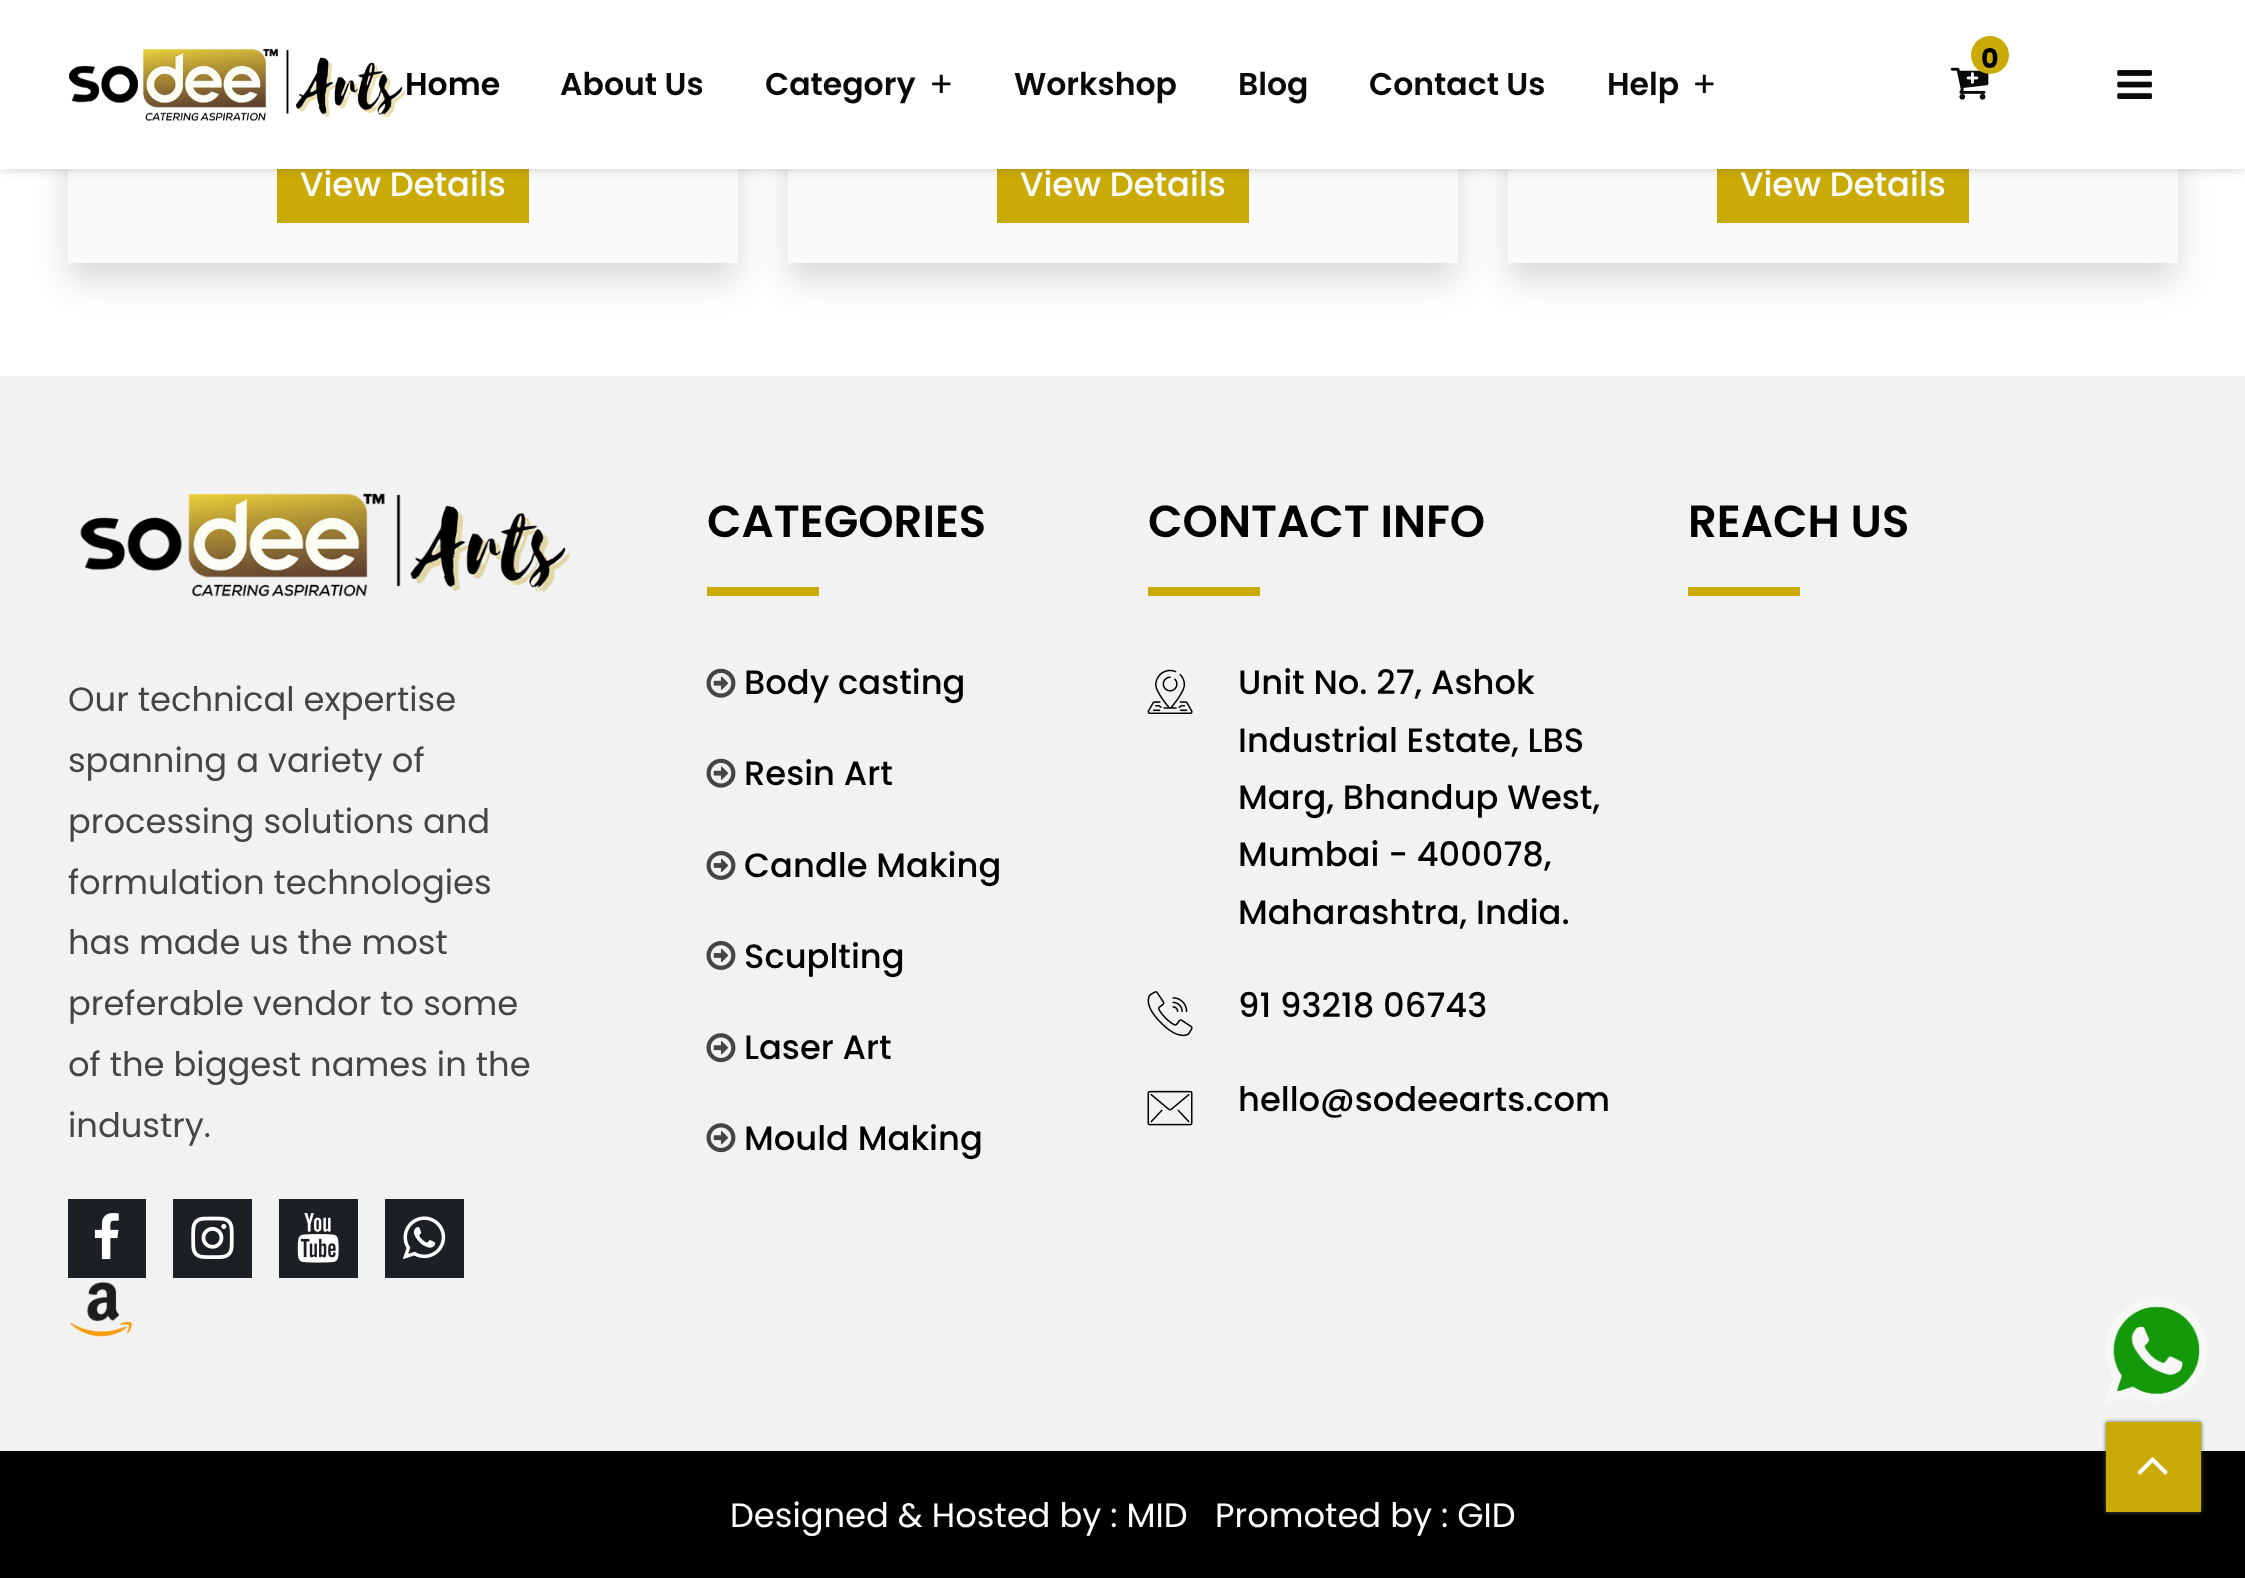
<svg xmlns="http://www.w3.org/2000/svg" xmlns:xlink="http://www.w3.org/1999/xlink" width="2245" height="1578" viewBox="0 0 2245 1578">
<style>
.cls-1{font:600 31.5px Poppins;fill:#000000}
.cls-2{font:600 31.5px Poppins;fill:#0a0a0a}
.cls-3{font:36px Poppins;fill:#0a0a0a}
.cls-4{font:bold 27px Poppins;fill:#000000}
.cls-5{font:500 33.75px Poppins;fill:#ffffff}
.cls-6{font:600 45px Poppins;fill:#000000}
.cls-7{font:500 33.75px Poppins;fill:#000000}
.cls-8{font:33.75px Poppins;fill:#454545}
.cls-9{font:33.75px Poppins;fill:#ffffff}
</style>
<rect width="100%" height="100%" fill="#ffffff"/>
<rect fill="#000000" fill-opacity="0.15" filter="blur(17px)" x="68" y="-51" width="670" height="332"/>
<rect fill="#fafafa" x="68" y="169" width="670" height="94"/>
<rect fill="#caab06" x="277" y="169" width="252" height="54"/>
<rect fill="#000000" fill-opacity="0.15" filter="blur(17px)" x="788" y="-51" width="670" height="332"/>
<rect fill="#fafafa" x="788" y="169" width="670" height="94"/>
<rect fill="#caab06" x="997" y="169" width="252" height="54"/>
<rect fill="#000000" fill-opacity="0.15" filter="blur(17px)" x="1508" y="-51" width="670" height="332"/>
<rect fill="#fafafa" x="1508" y="169" width="670" height="94"/>
<rect fill="#caab06" x="1717" y="169" width="252" height="54"/>
<rect fill="#000000" fill-opacity="0.2" filter="blur(5.5px)" x="0" y="0" width="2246" height="169"/>
<rect fill="#ffffff" x="0" y="0" width="2245" height="169"/>
<image xlink:href="image0.png" x="68" y="48" width="337" height="73"/>
<image xlink:href="image1.png" x="1950" y="67" width="39" height="33"/>
<circle fill="#caab06" cx="1990" cy="55" r="19"/>
<image xlink:href="image2.png" x="2117" y="70" width="35" height="29"/>
<rect fill="#f2f2f2" x="0" y="376" width="2245" height="1075"/>
<rect fill="#caab06" x="707" y="587" width="112" height="9"/>
<image xlink:href="image3.png" x="706" y="668" width="30" height="30"/>
<image xlink:href="image3.png" x="706" y="758" width="30" height="30"/>
<image xlink:href="image4.png" x="706" y="851" width="30" height="29"/>
<image xlink:href="image4.png" x="706" y="941" width="30" height="29"/>
<image xlink:href="image5.png" x="706" y="1033" width="30" height="30"/>
<image xlink:href="image5.png" x="706" y="1123" width="30" height="30"/>
<rect fill="#caab06" x="1148" y="587" width="112" height="9"/>
<image xlink:href="image6.png" x="1147" y="669" width="46" height="45"/>
<image xlink:href="image7.png" x="1147" y="991" width="46" height="46"/>
<image xlink:href="image8.png" x="1147" y="1090" width="46" height="36"/>
<rect fill="#caab06" x="1688" y="587" width="112" height="9"/>
<image xlink:href="image9.png" x="80" y="493" width="490" height="104"/>
<rect fill="#1c2024" x="68" y="1199" width="78" height="79"/>
<image xlink:href="image10.png" x="94" y="1213" width="25" height="47"/>
<rect fill="#1c2024" x="173" y="1199" width="79" height="79"/>
<image xlink:href="image11.png" x="191" y="1216" width="43" height="43"/>
<rect fill="#1c2024" x="279" y="1199" width="79" height="79"/>
<image xlink:href="image12.png" x="297" y="1213" width="42" height="50"/>
<rect fill="#1c2024" x="385" y="1199" width="79" height="79"/>
<image xlink:href="image13.png" x="402" y="1216" width="44" height="44"/>
<image xlink:href="image14.png" x="70" y="1281" width="63" height="56"/>
<rect fill="#000000" x="0" y="1451" width="2245" height="127"/>
<image xlink:href="image15.png" x="2105" y="1299" width="102" height="105"/>
<rect fill="#54595f" filter="blur(2px)" x="2106" y="1422" width="95" height="90"/>
<rect fill="#caab06" x="2106" y="1422" width="95" height="90"/>
<image xlink:href="image16.png" x="2137" y="1457" width="31" height="18"/>
<text class="cls-1" x="405" y="95">Home</text>
<text class="cls-2" x="560" y="95">About Us</text>
<text class="cls-2" x="765" y="95">Category</text>
<text class="cls-3" x="929" y="97">+</text>
<text class="cls-2" x="1014" y="95">Workshop</text>
<text class="cls-2" x="1238" y="95">Blog</text>
<text class="cls-2" x="1369" y="95">Contact Us</text>
<text class="cls-2" x="1607" y="95">Help</text>
<text class="cls-3" x="1692" y="97">+</text>
<text class="cls-4" x="1981" y="68">0</text>
<text class="cls-5" x="300" y="196">View Details</text>
<text class="cls-5" x="1020" y="196">View Details</text>
<text class="cls-5" x="1740" y="196">View Details</text>
<text class="cls-6" x="707" y="537">CATEGORIES</text>
<text class="cls-7" x="744" y="694">Body casting</text>
<text class="cls-7" x="744" y="785">Resin Art</text>
<text class="cls-7" x="744" y="877">Candle Making</text>
<text class="cls-7" x="744" y="968">Scuplting</text>
<text class="cls-7" x="744" y="1059">Laser Art</text>
<text class="cls-7" x="744" y="1150">Mould Making</text>
<text class="cls-6" x="1148" y="537">CONTACT INFO</text>
<text class="cls-7"><tspan x="1238" y="694">Unit No. 27, Ashok</tspan><tspan x="1238" y="752">Industrial Estate, LBS</tspan><tspan x="1238" y="809">Marg, Bhandup West,</tspan><tspan x="1238" y="866">Mumbai - 400078,</tspan><tspan x="1238" y="924">Maharashtra, India.</tspan></text>
<text class="cls-7" x="1238" y="1017">91 93218 06743</text>
<text class="cls-7" x="1238" y="1111">hello@sodeearts.com</text>
<text class="cls-6" x="1688" y="537">REACH US</text>
<text class="cls-8"><tspan x="68" y="711">Our technical expertise</tspan><tspan x="68" y="772">spanning a variety of</tspan><tspan x="68" y="833">processing solutions and</tspan><tspan x="68" y="894">formulation technologies</tspan><tspan x="68" y="954">has made us the most</tspan><tspan x="68" y="1015">preferable vendor to some</tspan><tspan x="68" y="1076">of the biggest names in the</tspan><tspan x="68" y="1137">industry.</tspan></text>
<text class="cls-9" x="730" y="1527">Designed &amp; Hosted by : MID</text>
<text class="cls-9" x="1215" y="1527">Promoted by : GID</text>
</svg>
